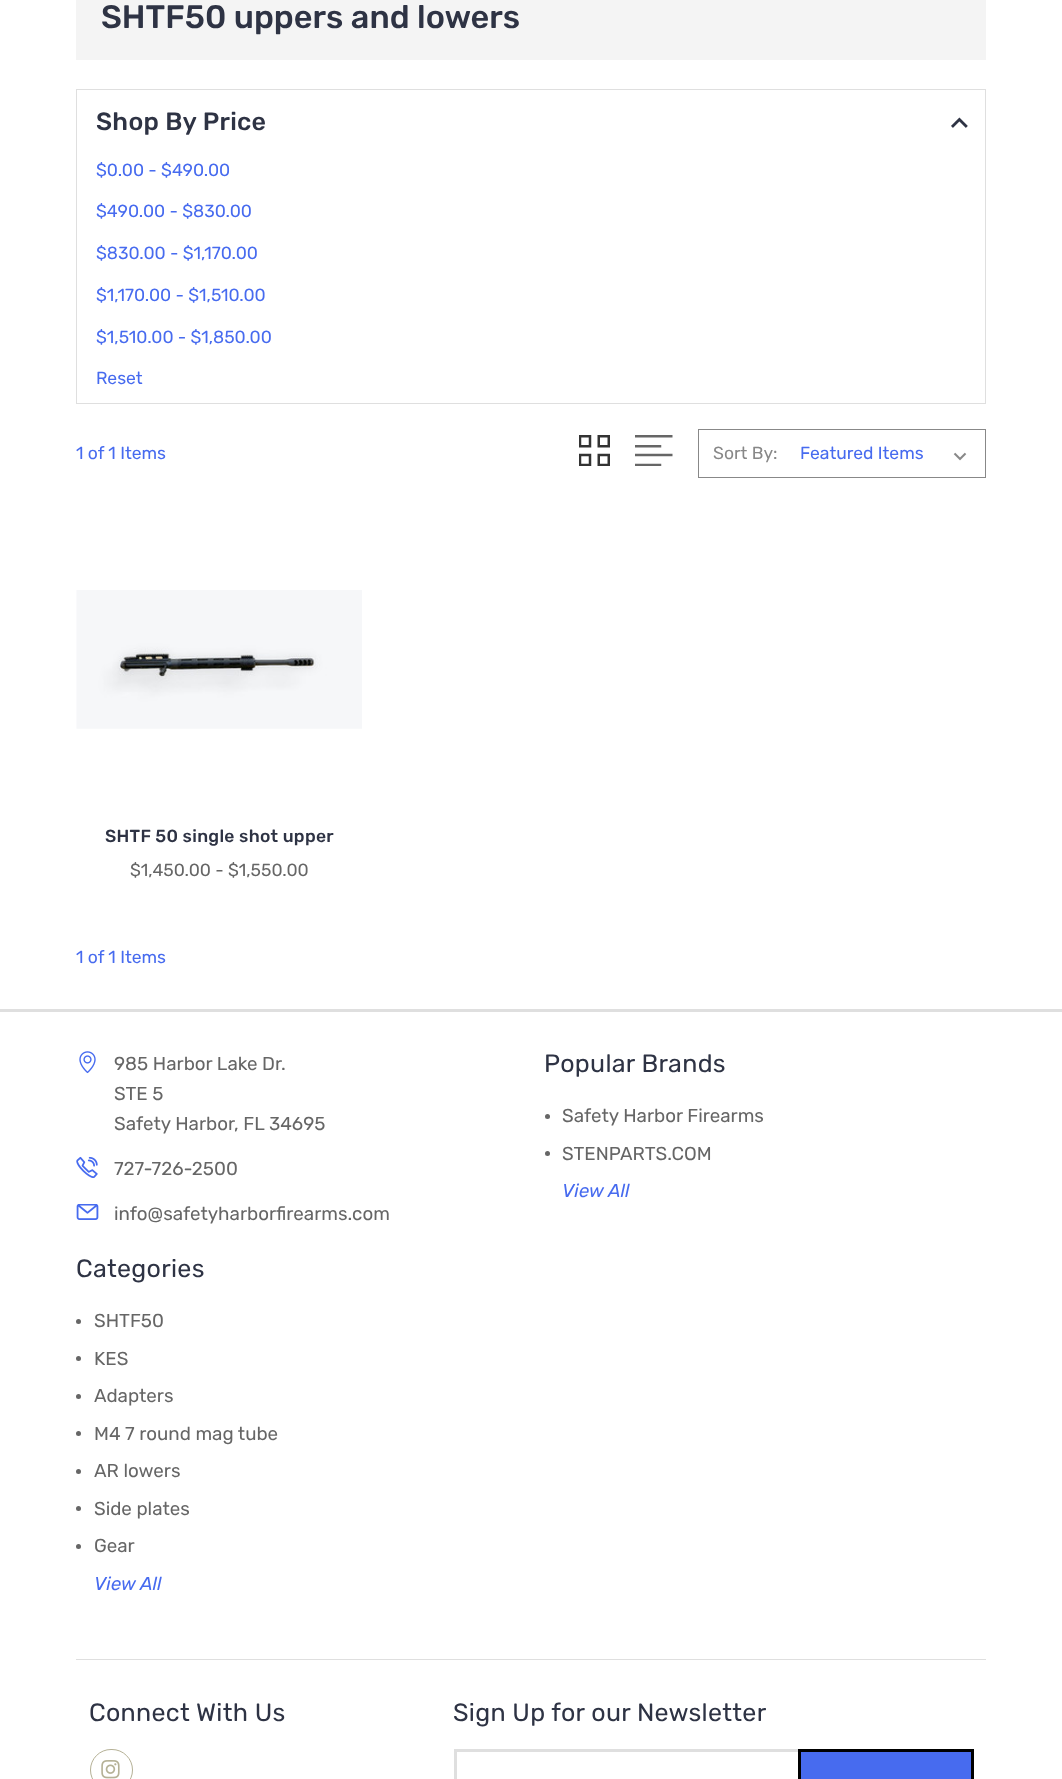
<svg xmlns="http://www.w3.org/2000/svg" xmlns:xlink="http://www.w3.org/1999/xlink" width="1062" height="1779" viewBox="0 0 1062 1779">
<style>
.cls-1{font:500 32.5px Rubik;fill:#2e3344}
.cls-2{font:500 25px Rubik;letter-spacing:0.3px;fill:#2e3344}
.cls-3{font:17.5px Rubik;fill:#476bef}
.cls-4{font:17.5px Rubik;fill:#888888}
.cls-5{font:500 17.5px Rubik;letter-spacing:0.3px;fill:#2e3344}
.cls-6{font:17.5px Rubik;fill:#666666}
.cls-7{font:18.75px Rubik;fill:#666666}
.cls-8{font:25px Rubik;letter-spacing:0.3px;fill:#2e3344}
.cls-9{font:italic 18.75px Rubik;fill:#476bef}
</style>
<rect width="100%" height="100%" fill="#ffffff"/>
<rect fill="#f4f4f4" x="76" y="0" width="910" height="60"/>
<rect fill="none" stroke="#dfdfdf" x="76.5" y="89.5" width="909" height="314"/>
<image xlink:href="image0.png" x="951" y="117" width="17" height="11"/>
<image xlink:href="image1.png" x="579" y="435" width="31" height="31"/>
<image xlink:href="image2.png" x="635" y="435" width="38" height="31"/>
<rect fill="none" stroke="#888888" x="698.5" y="429.5" width="287" height="48"/>
<image xlink:href="image3.png" x="953" y="452" width="14" height="9"/>
<image xlink:href="image4.png" x="76" y="590" width="286" height="139"/>
<rect fill="#dfdfdf" x="0" y="1009" width="1062" height="3"/>
<image xlink:href="image5.png" x="79" y="1051" width="17" height="23"/>
<image xlink:href="image6.png" x="76" y="1156" width="22" height="23"/>
<image xlink:href="image7.png" x="76" y="1204" width="23" height="16"/>
<circle fill="#666666" cx="547.5" cy="1116.5" r="2.5"/>
<circle fill="#666666" cx="547.5" cy="1153.5" r="2.5"/>
<circle fill="#666666" cx="78.5" cy="1321.5" r="2.5"/>
<circle fill="#666666" cx="78.5" cy="1358.5" r="2.5"/>
<circle fill="#666666" cx="78.5" cy="1396.5" r="2.5"/>
<circle fill="#666666" cx="78.5" cy="1433.5" r="2.5"/>
<circle fill="#666666" cx="78.5" cy="1471.5" r="2.5"/>
<circle fill="#666666" cx="78.5" cy="1508.5" r="2.5"/>
<circle fill="#666666" cx="78.5" cy="1546.5" r="2.5"/>
<rect fill="#dfdfdf" x="76" y="1659" width="910" height="1"/>
<rect fill="none" stroke="#b5b196" x="90.5" y="1749.5" width="42" height="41" rx="20.5"/>
<image xlink:href="image8.png" x="101" y="1760" width="19" height="19"/>
<rect fill="#dfdfdf" x="454" y="1749" width="344" height="3"/>
<rect fill="#dfdfdf" x="454" y="1749" width="3" height="30"/>
<rect fill="#476bef" stroke="#000000" stroke-width="3" x="799.5" y="1750.5" width="173" height="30"/>
<text class="cls-1" x="101" y="28">SHTF50 uppers and lowers</text>
<text class="cls-2" x="96" y="130">Shop By Price</text>
<text class="cls-3" x="96" y="176">$0.00 - $490.00</text>
<text class="cls-3" x="96" y="217">$490.00 - $830.00</text>
<text class="cls-3" x="96" y="259">$830.00 - $1,170.00</text>
<text class="cls-3" x="96" y="301">$1,170.00 - $1,510.00</text>
<text class="cls-3" x="96" y="343">$1,510.00 - $1,850.00</text>
<text class="cls-3" x="96" y="384">Reset</text>
<text class="cls-3" x="76" y="459">1 of 1 Items</text>
<text class="cls-4" x="713" y="459">Sort By:</text>
<text class="cls-3" x="800" y="459">Featured Items</text>
<text class="cls-5" x="105" y="842">SHTF 50 single shot upper</text>
<text class="cls-6" x="130" y="876">$1,450.00 - $1,550.00</text>
<text class="cls-3" x="76" y="963">1 of 1 Items</text>
<text class="cls-7"><tspan x="114" y="1070">985 Harbor Lake Dr.</tspan><tspan x="114" y="1100">STE 5</tspan><tspan x="114" y="1130">Safety Harbor, FL 34695</tspan></text>
<text class="cls-7" x="114" y="1175">727-726-2500</text>
<text class="cls-7" x="114" y="1220">info@safetyharborfirearms.com</text>
<text class="cls-8" x="544" y="1072">Popular Brands</text>
<text class="cls-7" x="562" y="1122">Safety Harbor Firearms</text>
<text class="cls-7" x="562" y="1160">STENPARTS.COM</text>
<text class="cls-9" x="562" y="1197">View All</text>
<text class="cls-8" x="76" y="1277">Categories</text>
<text class="cls-7" x="94" y="1327">SHTF50</text>
<text class="cls-7"><tspan x="94" y="1365">KES</tspan><tspan x="94" y="1402">Adapters</tspan></text>
<text class="cls-7"><tspan x="94" y="1440">M4 7 round mag tube</tspan><tspan x="94" y="1477">AR lowers</tspan></text>
<text class="cls-7"><tspan x="94" y="1515">Side plates</tspan><tspan x="94" y="1552">Gear</tspan></text>
<text class="cls-9" x="94" y="1590">View All</text>
<text class="cls-8" x="89" y="1721">Connect With Us</text>
<text class="cls-8" x="453" y="1721">Sign Up for our Newsletter</text>
</svg>
